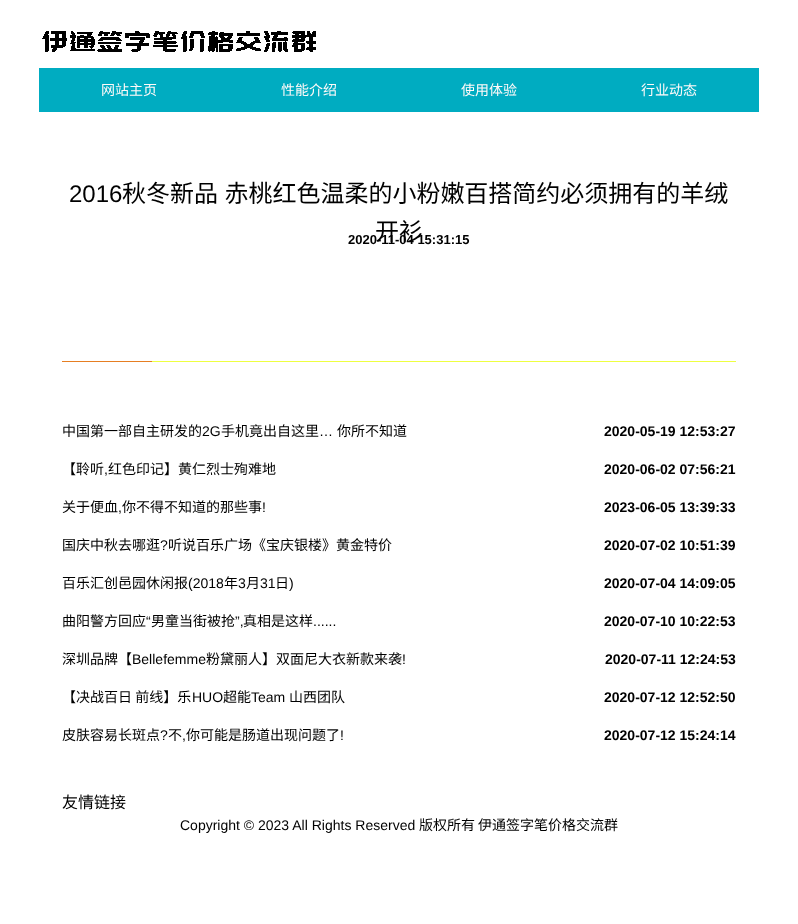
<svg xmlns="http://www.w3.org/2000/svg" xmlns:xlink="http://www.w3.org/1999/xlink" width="798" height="924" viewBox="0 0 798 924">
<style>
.cls-1{font:14px Noto Sans CJK SC;fill:#fffaf9}
.cls-2{font:24px Liberation Sans;fill:#000000}
.cls-3{font:24px Noto Sans CJK SC;fill:#000000}
.cls-4{font:bold 13px Liberation Sans;fill:#000000}
.cls-5{font:14px Noto Sans CJK SC;fill:#000000}
.cls-6{font:14px Liberation Sans;fill:#000000}
.cls-7{font:bold 14px Liberation Sans;fill:#000000}
.cls-8{font:16px Noto Sans CJK SC;fill:#000000}
</style>
<rect width="100%" height="100%" fill="#ffffff"/>
<image xlink:href="image0.png" x="42" y="31" width="274" height="21"/>
<rect fill="#00acc1" x="39" y="68" width="720" height="44"/>
<rect fill="#eeff41" x="152" y="361" width="584" height="1"/>
<rect fill="#e67e22" x="62" y="361" width="90" height="1"/>
<text class="cls-1" x="101" y="95">网站主页</text>
<text class="cls-1" x="281" y="95">性能介绍</text>
<text class="cls-1" x="461" y="95">使用体验</text>
<text class="cls-1" x="641" y="95">行业动态</text>
<text class="cls-2" x="69" y="202">2016</text>
<text class="cls-3" x="122" y="202" word-spacing="1">秋冬新品 赤桃红色温柔的小粉嫩百搭简约必须拥有的羊绒</text>
<text class="cls-3" x="375" y="240">开衫</text>
<text class="cls-4" x="348" y="244">2020-11-04 15:31:15</text>
<text class="cls-5" x="62" y="436">中国第一部自主研发的</text>
<text class="cls-6" x="202" y="436">2G</text>
<text class="cls-5" x="221" y="436">手机竟出自这里</text>
<text class="cls-6" x="319" y="436">…</text>
<text class="cls-5" x="337" y="436">你所不知道</text>
<text class="cls-7" x="604" y="436">2020-05-19 12:53:27</text>
<text class="cls-5" x="62" y="474">【聆听</text>
<text class="cls-6" x="104" y="474">,</text>
<text class="cls-5" x="108" y="474">红色印记】黄仁烈士殉难地</text>
<text class="cls-7" x="604" y="474">2020-06-02 07:56:21</text>
<text class="cls-5" x="62" y="512">关于便血</text>
<text class="cls-6" x="118" y="512">,</text>
<text class="cls-5" x="122" y="512">你不得不知道的那些事</text>
<text class="cls-6" x="262" y="512">!</text>
<text class="cls-7" x="604" y="512">2023-06-05 13:39:33</text>
<text class="cls-5" x="62" y="550">国庆中秋去哪逛</text>
<text class="cls-6" x="160" y="550">?</text>
<text class="cls-5" x="168" y="550">听说百乐广场《宝庆银楼》黄金特价</text>
<text class="cls-7" x="604" y="550">2020-07-02 10:51:39</text>
<text class="cls-5" x="62" y="588">百乐汇创邑园休闲报</text>
<text class="cls-6" x="188" y="588">(2018</text>
<text class="cls-5" x="224" y="588">年</text>
<text class="cls-6" x="238" y="588">3</text>
<text class="cls-5" x="246" y="588">月</text>
<text class="cls-6" x="260" y="588">31</text>
<text class="cls-5" x="275" y="588">日</text>
<text class="cls-6" x="289" y="588">)</text>
<text class="cls-7" x="604" y="588">2020-07-04 14:09:05</text>
<text class="cls-5" x="62" y="626">曲阳警方回应</text>
<text class="cls-6" x="146" y="626">“</text>
<text class="cls-5" x="151" y="626">男童当街被抢</text>
<text class="cls-6" x="235" y="626">”,</text>
<text class="cls-5" x="243" y="626">真相是这样</text>
<text class="cls-6" x="313" y="626">......</text>
<text class="cls-7" x="604" y="626">2020-07-10 10:22:53</text>
<text class="cls-5" x="62" y="664">深圳品牌【</text>
<text class="cls-6" x="132" y="664">Bellefemme</text>
<text class="cls-5" x="206" y="664">粉黛丽人】双面尼大衣新款来袭</text>
<text class="cls-6" x="402" y="664">!</text>
<text class="cls-7" x="605" y="664">2020-07-11 12:24:53</text>
<text class="cls-5" x="62" y="702">【决战百日 前线】乐</text>
<text class="cls-6" x="192" y="702">HUO</text>
<text class="cls-5" x="223" y="702">超能</text>
<text class="cls-6" x="251" y="702">Team</text>
<text class="cls-5" x="289" y="702">山西团队</text>
<text class="cls-7" x="604" y="702">2020-07-12 12:52:50</text>
<text class="cls-5" x="62" y="740">皮肤容易长斑点</text>
<text class="cls-6" x="160" y="740">?</text>
<text class="cls-5" x="168" y="740">不</text>
<text class="cls-6" x="182" y="740">,</text>
<text class="cls-5" x="186" y="740">你可能是肠道出现问题了</text>
<text class="cls-6" x="340" y="740">!</text>
<text class="cls-7" x="604" y="740">2020-07-12 15:24:14</text>
<text class="cls-8" x="62" y="808">友情链接</text>
<text class="cls-6" x="180" y="830">Copyright © 2023 All Rights Reserved</text>
<text class="cls-5" x="419" y="830">版权所有</text>
<text class="cls-5" x="478" y="830">伊通签字笔价格交流群</text>
</svg>
